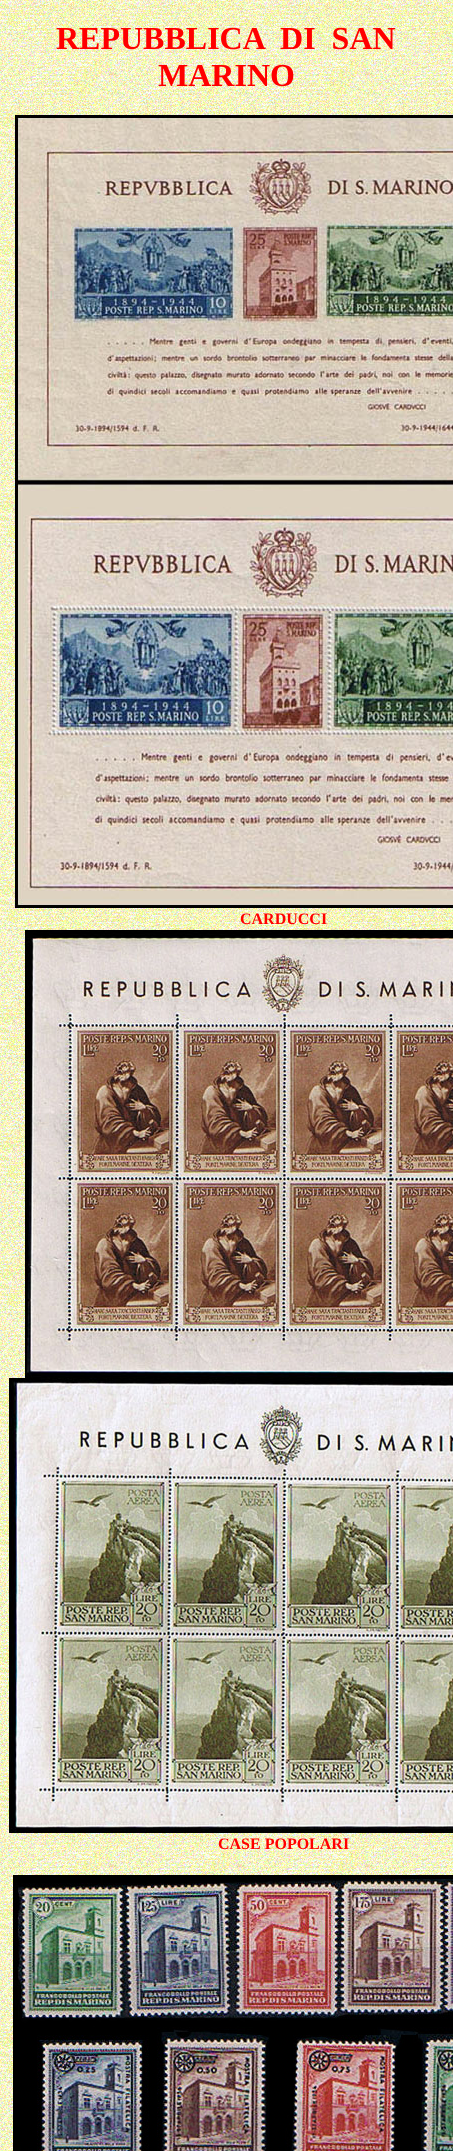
<svg xmlns="http://www.w3.org/2000/svg" xmlns:xlink="http://www.w3.org/1999/xlink" width="453" height="2151" viewBox="0 0 453 2151">
<style>
.cls-1{font:bold 32px Liberation Serif;fill:#ff0000}
.cls-2{font:bold 16px Liberation Serif;fill:#ff0000}
</style>
<rect width="100%" height="100%" fill="#ffffff"/>
<image xlink:href="image0.png" x="0" y="0" width="453" height="2151"/>
<image xlink:href="image1.png" x="15" y="115" width="438" height="793"/>
<image xlink:href="image2.png" x="25" y="930" width="428" height="448"/>
<image xlink:href="image3.png" x="9" y="1378" width="444" height="455"/>
<image xlink:href="image4.png" x="13" y="1875" width="440" height="276"/>
<text class="cls-1" xml:space="preserve" x="56" y="49">REPUBBLICA  DI  SAN</text>
<text class="cls-1" x="158" y="86">MARINO</text>
<text class="cls-2" x="240" y="924">CARDUCCI</text>
<text class="cls-2" x="218" y="1849">CASE POPOLARI</text>
</svg>
